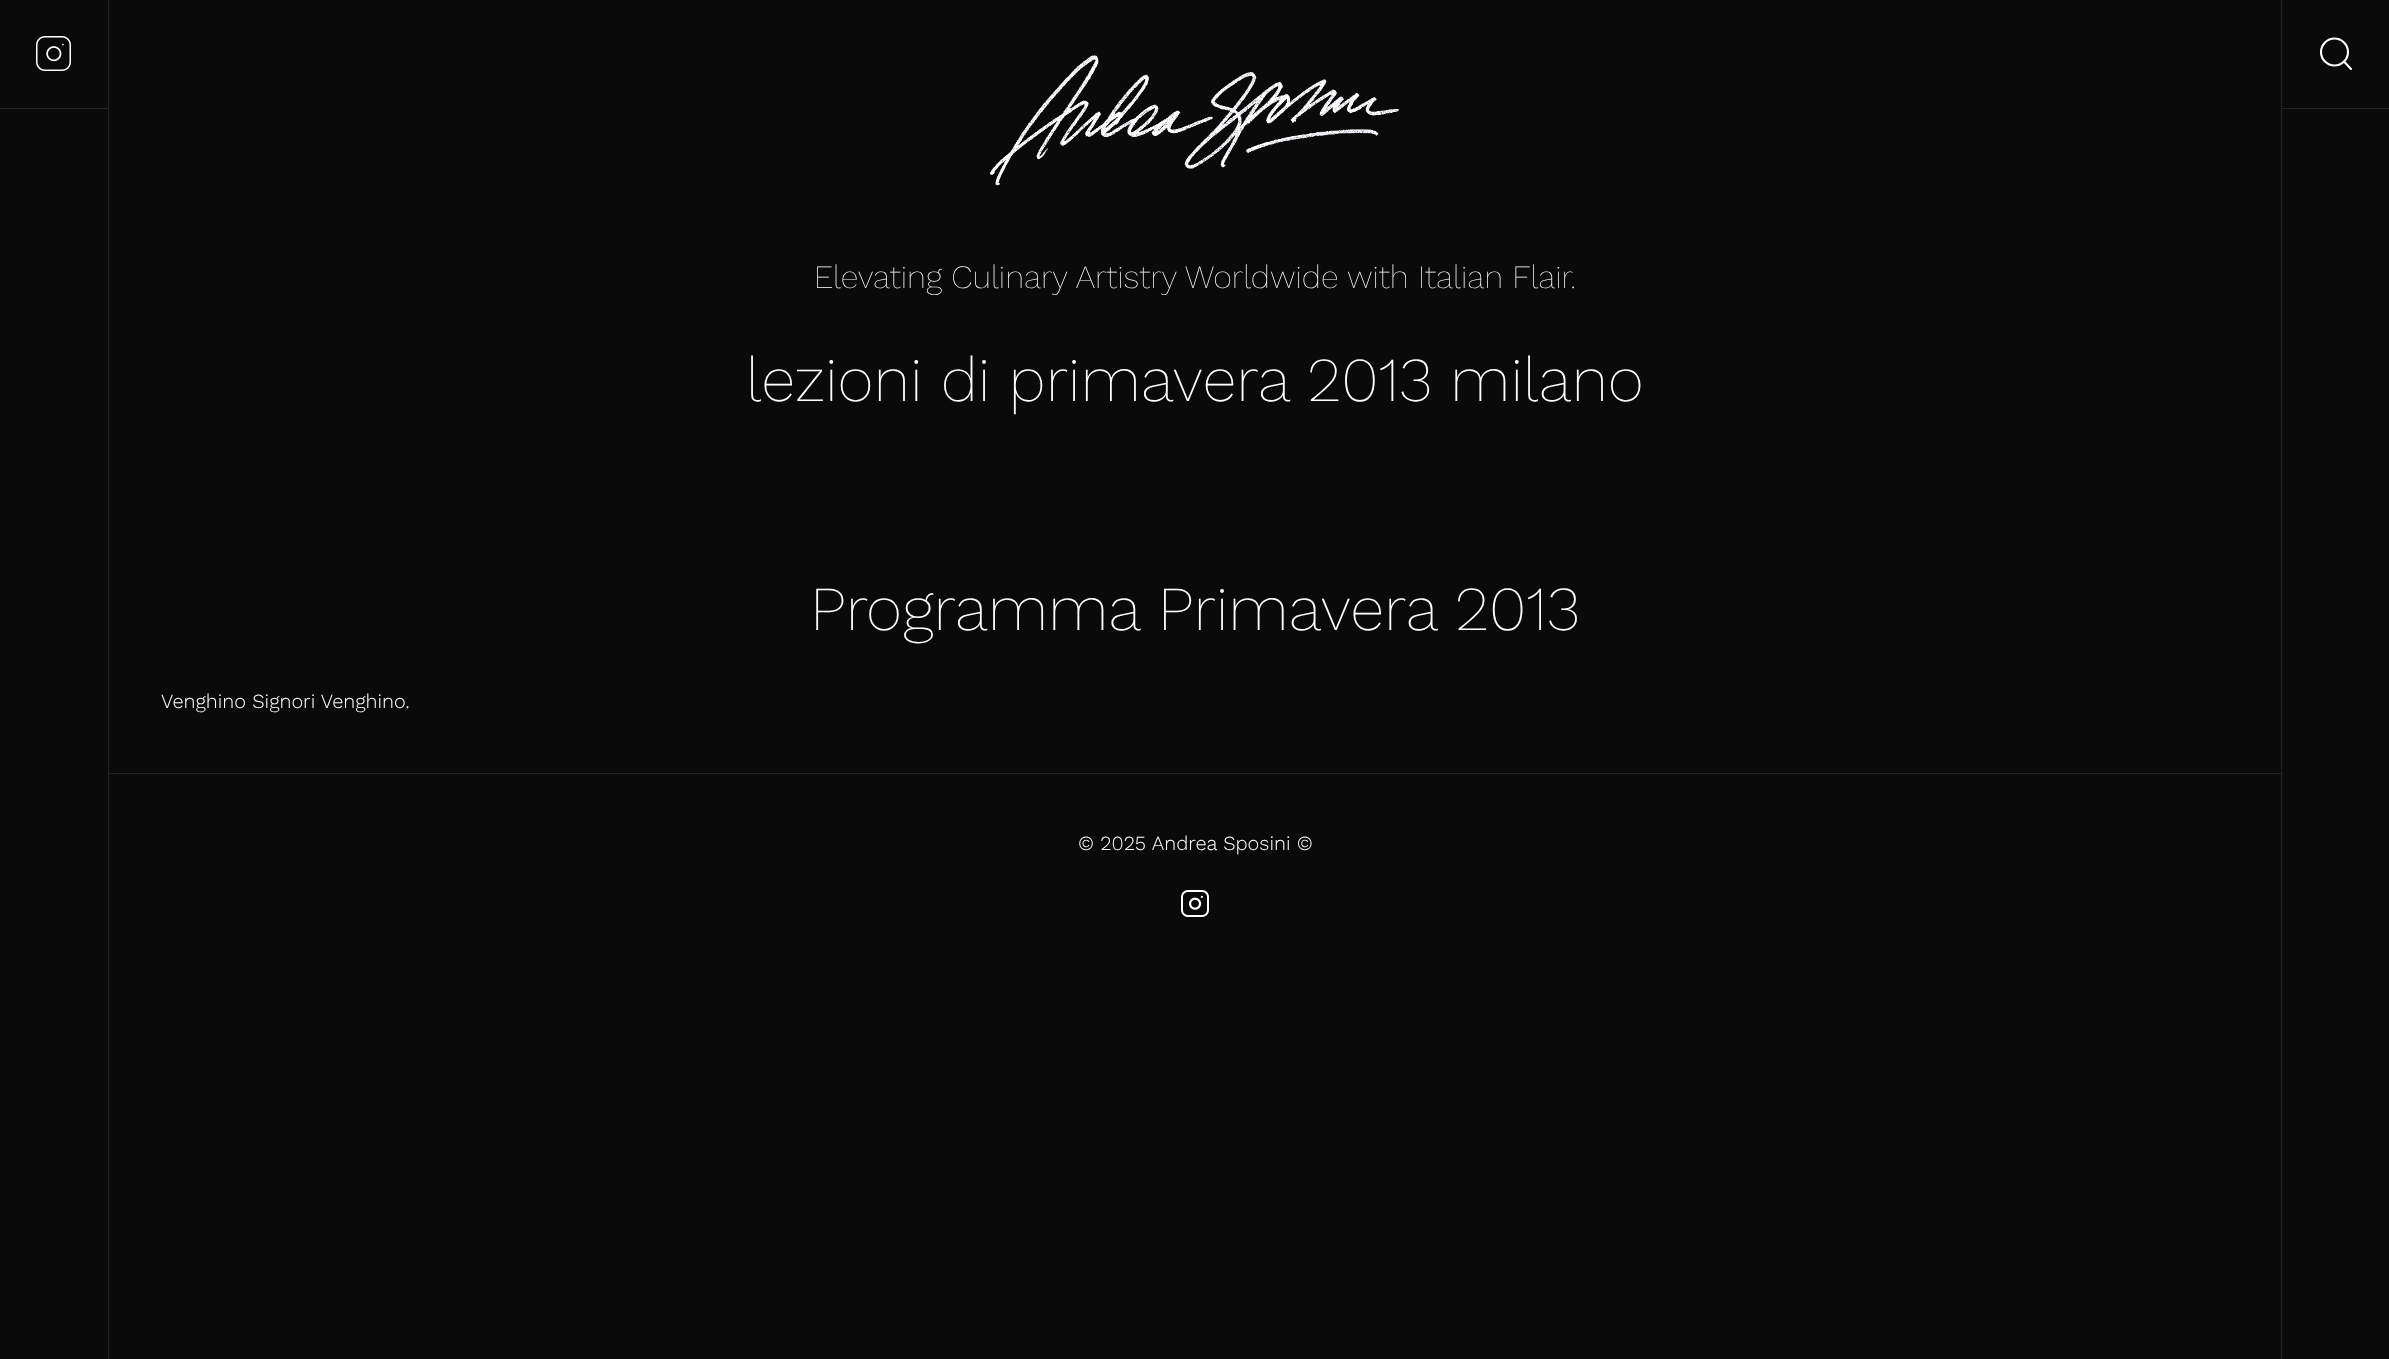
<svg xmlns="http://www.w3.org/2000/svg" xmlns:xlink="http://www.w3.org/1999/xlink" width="2389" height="1359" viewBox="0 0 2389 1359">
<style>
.cls-1{font:100 32.5px Work Sans;fill:#ffffff}
.cls-2{font:200 62.5px Work Sans;fill:#ffffff}
.cls-3{font:300 20px Work Sans;fill:#ffffff}
</style>
<rect width="100%" height="100%" fill="#0a0a0a"/>
<rect fill="#232323" x="2281" y="108" width="108" height="1"/>
<rect fill="#232323" x="2281" y="0" width="1" height="109"/>
<rect fill="#232323" x="108" y="773" width="2175" height="1"/>
<rect fill="#232323" x="108" y="0" width="1" height="1359"/>
<rect fill="#232323" x="0" y="108" width="109" height="1"/>
<image xlink:href="image0.png" x="36" y="36" width="35" height="35"/>
<circle fill="none" stroke="#ffffff" stroke-width="2.1" cx="2334.5" cy="52" r="13.5"/>
<path fill="none" stroke="#ffffff" stroke-width="2.1" stroke-linecap="round" stroke-linejoin="round" d="M2351 69L2344 61.5"/>
<image xlink:href="image1.png" x="990" y="55" width="409" height="131"/>
<image xlink:href="image2.png" x="1181" y="890" width="28" height="27"/>
<rect fill="#232323" x="2281" y="109" width="1" height="1250"/>
<text class="cls-1" x="814" y="288">Elevating Culinary Artistry Worldwide with Italian Flair.</text>
<text class="cls-2" x="746" y="401">lezioni di primavera 2013 milano</text>
<text class="cls-2" x="810" y="630">Programma Primavera 2013</text>
<text class="cls-3" x="161" y="708">Venghino Signori Venghino.</text>
<text class="cls-3" x="1078" y="850">© 2025 Andrea Sposini ©</text>
</svg>
